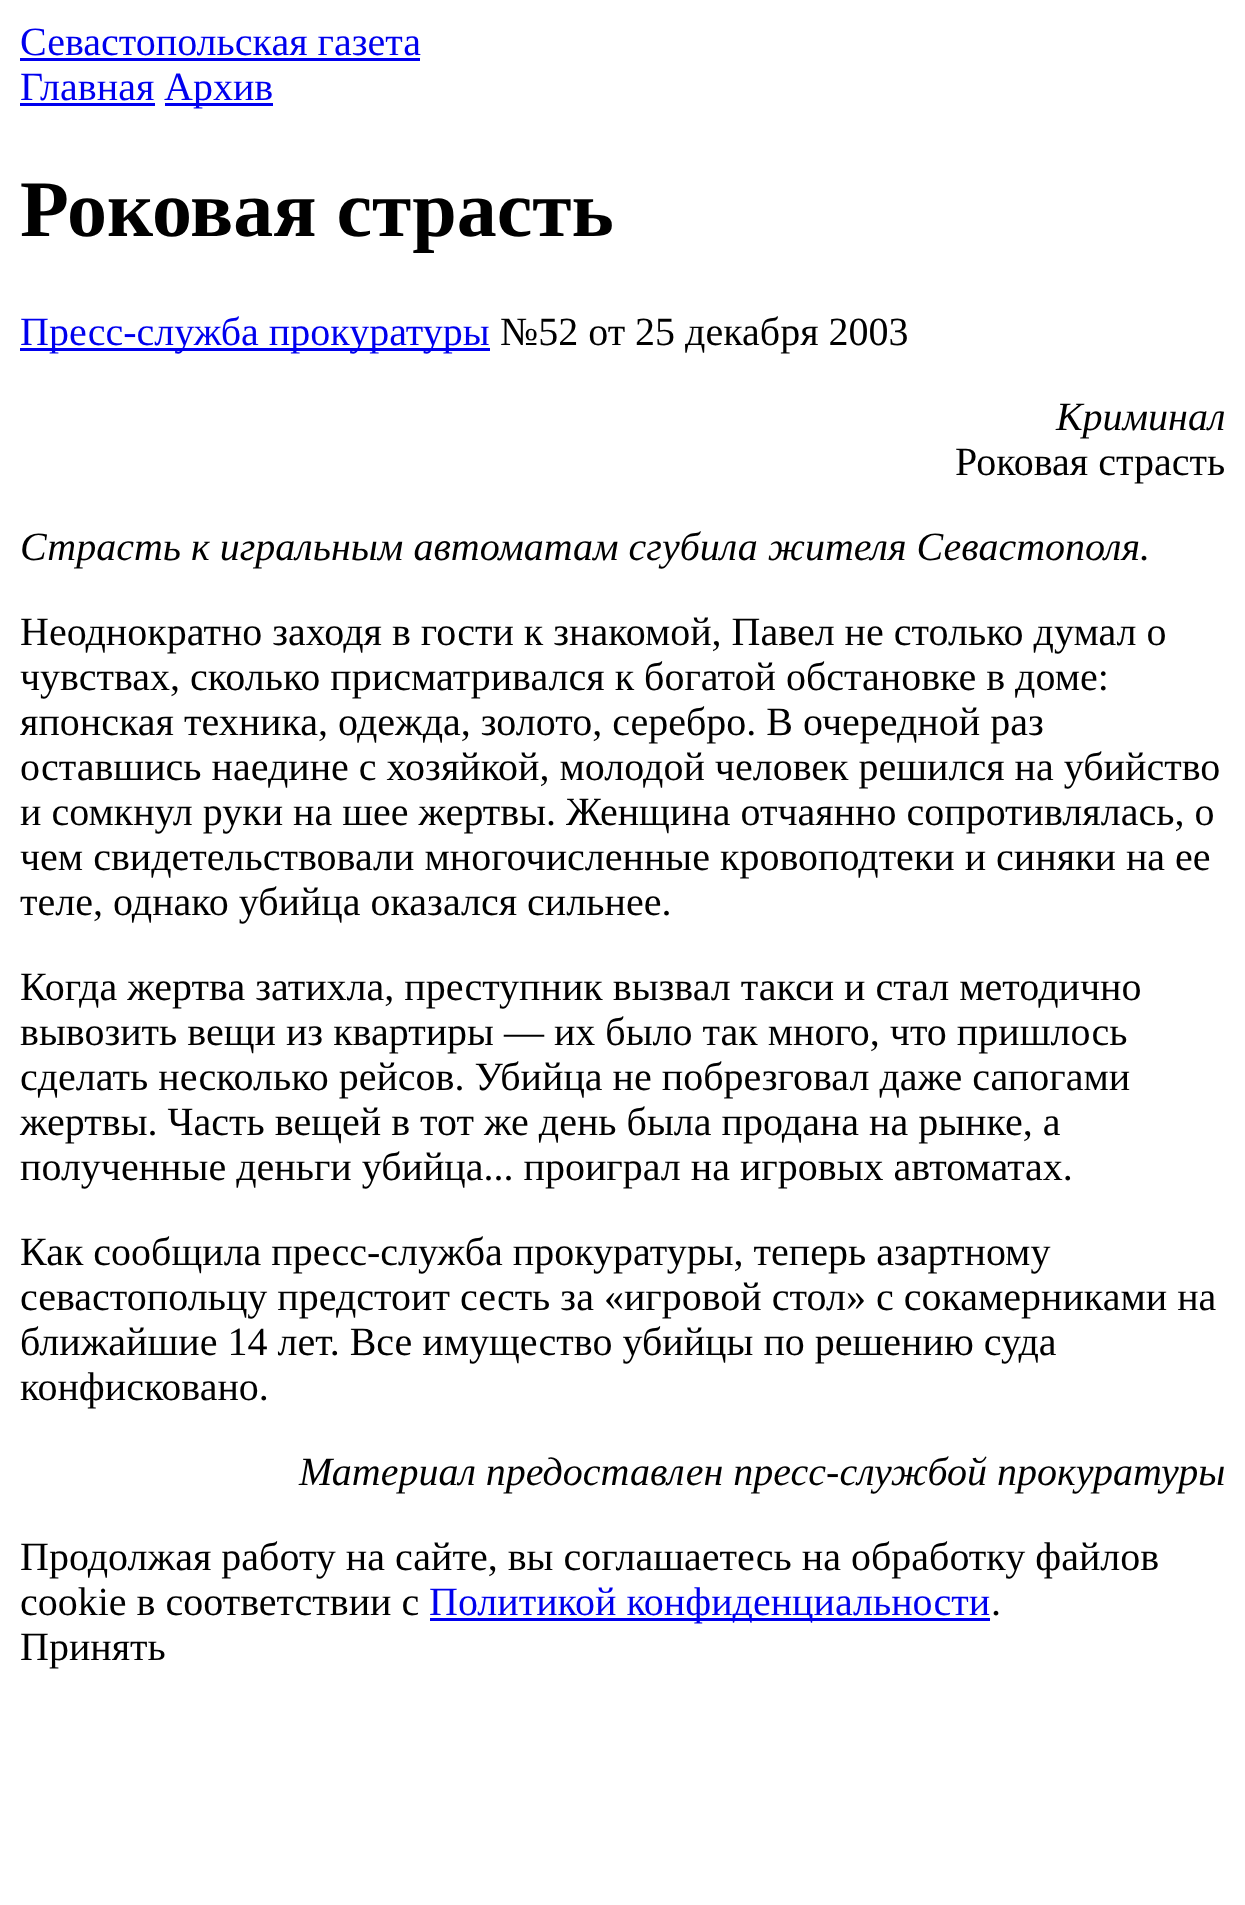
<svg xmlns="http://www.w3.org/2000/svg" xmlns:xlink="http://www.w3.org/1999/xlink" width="1245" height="1905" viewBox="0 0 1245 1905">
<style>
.cls-1{font:40px Liberation Serif;fill:#0000ee}
.cls-2{font:bold 80px Liberation Serif;fill:#000000}
.cls-3{font:40px Liberation Serif;fill:#000000}
.cls-4{font:italic 40px Liberation Serif;fill:#000000}
</style>
<rect width="100%" height="100%" fill="#ffffff"/>
<rect fill="#0000ee" x="20" y="58" width="400" height="3"/>
<rect fill="#0000ee" x="20" y="103" width="135" height="3"/>
<rect fill="#0000ee" x="165" y="103" width="108" height="3"/>
<rect fill="#0000ee" x="20" y="348" width="470" height="3"/>
<rect fill="#0000ee" x="430" y="1618" width="560" height="3"/>
<text class="cls-1"><tspan x="20" y="55">Севастопольская газета</tspan><tspan x="20" y="100">Главная</tspan></text>
<text class="cls-1" x="164" y="100">Архив</text>
<text class="cls-2" x="20" y="236">Роковая страсть</text>
<text class="cls-1" x="20" y="345">Пресс-служба прокуратуры</text>
<text class="cls-3" x="500" y="345">№52 от 25 декабря 2003</text>
<text class="cls-4" x="1056" y="430">Криминал</text>
<text class="cls-3" x="955" y="475">Роковая страсть</text>
<text class="cls-4" x="20" y="560">Страсть к игральным автоматам сгубила жителя Севастополя.</text>
<text class="cls-3"><tspan x="20" y="645">Неоднократно заходя в гости к знакомой, Павел не столько думал о</tspan><tspan x="20" y="690">чувствах, сколько присматривался к богатой обстановке в доме:</tspan><tspan x="20" y="735">японская техника, одежда, золото, серебро. В очередной раз</tspan><tspan x="20" y="780">оставшись наедине с хозяйкой, молодой человек решился на убийство</tspan><tspan x="20" y="825">и сомкнул руки на шее жертвы. Женщина отчаянно сопротивлялась, о</tspan><tspan x="20" y="870">чем свидетельствовали многочисленные кровоподтеки и синяки на ее</tspan><tspan x="20" y="915">теле, однако убийца оказался сильнее.</tspan></text>
<text class="cls-3"><tspan x="20" y="1000">Когда жертва затихла, преступник вызвал такси и стал методично</tspan><tspan x="20" y="1045">вывозить вещи из квартиры — их было так много, что пришлось</tspan><tspan x="20" y="1090">сделать несколько рейсов. Убийца не побрезговал даже сапогами</tspan><tspan x="20" y="1135">жертвы. Часть вещей в тот же день была продана на рынке, а</tspan><tspan x="20" y="1180">полученные деньги убийца... проиграл на игровых автоматах.</tspan></text>
<text class="cls-3"><tspan x="20" y="1265">Как сообщила пресс-служба прокуратуры, теперь азартному</tspan><tspan x="20" y="1310">севастопольцу предстоит сесть за «игровой стол» с сокамерниками на</tspan><tspan x="20" y="1355">ближайшие 14 лет. Все имущество убийцы по решению суда</tspan><tspan x="20" y="1400">конфисковано.</tspan></text>
<text class="cls-4" x="299" y="1485">Материал предоставлен пресс-службой прокуратуры</text>
<text class="cls-3"><tspan x="20" y="1570">Продолжая работу на сайте, вы соглашаетесь на обработку файлов</tspan><tspan x="20" y="1615">cookie в соответствии с</tspan></text>
<text class="cls-1" x="429" y="1615">Политикой конфиденциальности</text>
<text class="cls-3" x="991" y="1615">.</text>
<text class="cls-3" x="20" y="1660">Принять</text>
</svg>
